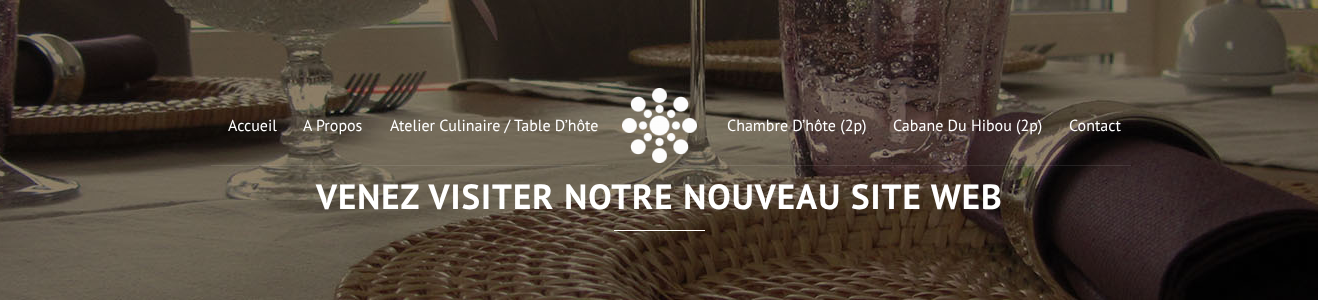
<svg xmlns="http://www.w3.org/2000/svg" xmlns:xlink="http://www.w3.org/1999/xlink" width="1318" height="301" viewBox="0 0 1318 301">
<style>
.cls-1{font:16px PT Sans;fill:#ffffff}
.cls-2{font:bold 35px PT Sans;letter-spacing:1px;fill:#ffffff}
</style>
<rect width="100%" height="100%" fill="#ffffff"/>
<image xlink:href="image1.png" x="0" y="0" width="1318" height="300"/>
<rect fill="#fafafa" fill-opacity="0.1" x="211" y="165" width="75" height="1"/>
<rect fill="#fafafa" fill-opacity="0.1" x="286" y="165" width="87" height="1"/>
<rect fill="#fafafa" fill-opacity="0.1" x="373" y="165" width="235" height="1"/>
<image xlink:href="image0.png" x="622" y="88" width="75" height="75"/>
<rect fill="#fafafa" fill-opacity="0.1" x="710" y="165" width="166" height="1"/>
<rect fill="#fafafa" fill-opacity="0.1" x="876" y="165" width="176" height="1"/>
<rect fill="#fafafa" fill-opacity="0.1" x="1052" y="165" width="79" height="1"/>
<rect fill="#ffffff" x="614" y="230" width="91" height="1"/>
<text class="cls-1" x="228" y="131">Accueil</text>
<text class="cls-1" x="303" y="131">A Propos</text>
<text class="cls-1" x="390" y="131">Atelier Culinaire / Table D’hôte</text>
<text class="cls-1" x="727" y="131">Chambre D’hôte (2p)</text>
<text class="cls-1" x="893" y="131">Cabane Du Hibou (2p)</text>
<text class="cls-1" x="1069" y="131">Contact</text>
<text class="cls-2" x="316" y="209">VENEZ VISITER NOTRE NOUVEAU SITE WEB</text>
</svg>
